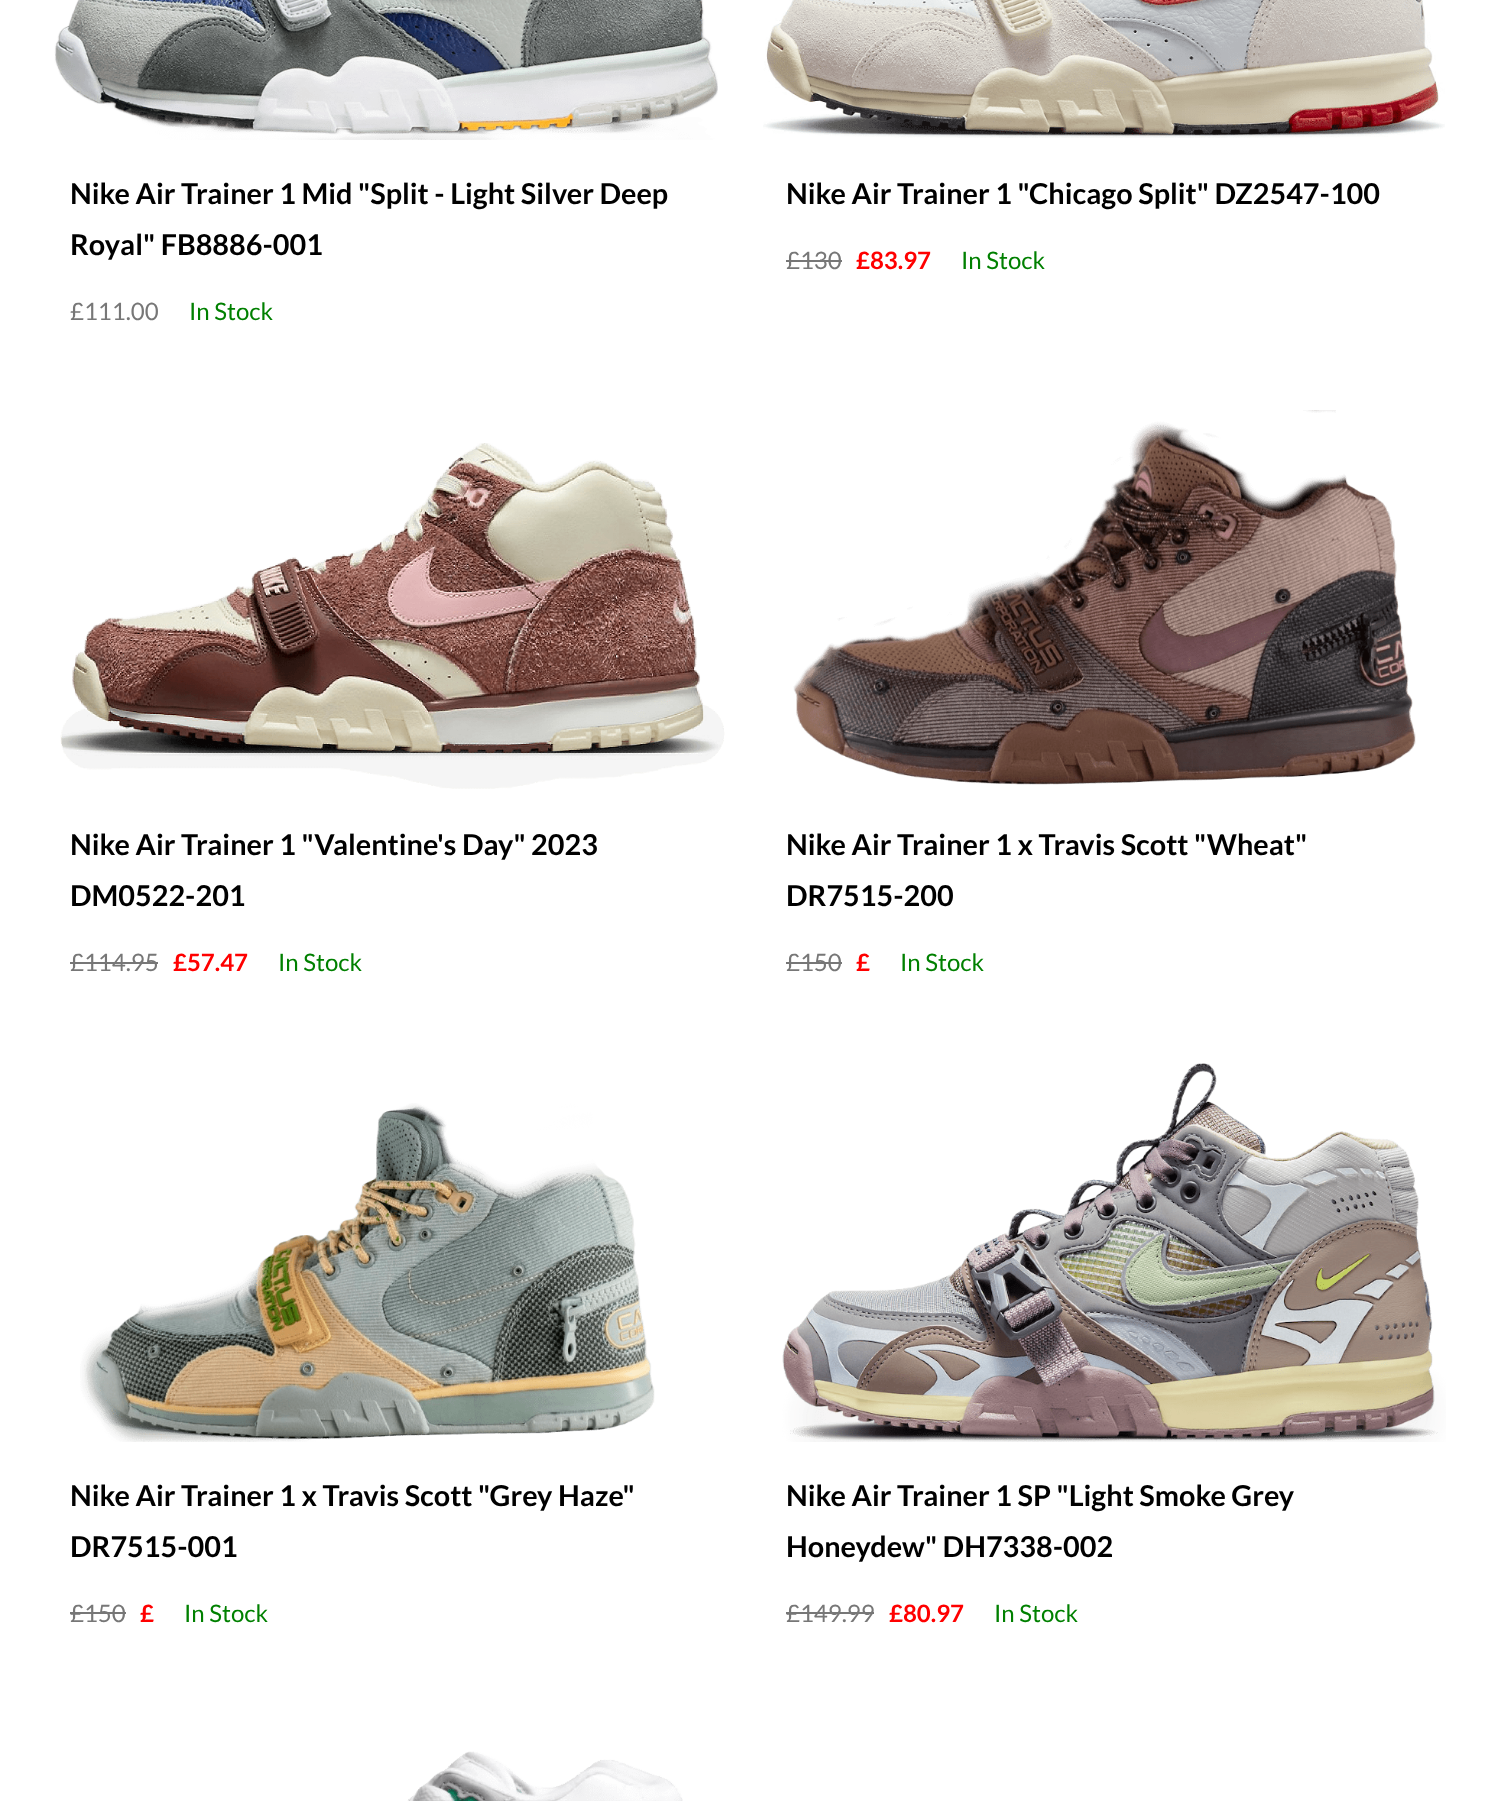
<svg xmlns="http://www.w3.org/2000/svg" xmlns:xlink="http://www.w3.org/1999/xlink" width="1487" height="1801" viewBox="0 0 1487 1801">
<style>
.cls-1{font:bold 28.8px Lato;fill:#000000}
.cls-2{font:24px Lato;fill:#777777}
.cls-3{font:24px Lato;fill:#008000}
.cls-4{font:bold 24px Lato;fill:#ff0000}
</style>
<rect width="100%" height="100%" fill="#ffffff"/>
<image xlink:href="image0.png" x="54" y="0" width="664" height="140"/>
<image xlink:href="image1.png" x="763" y="0" width="682" height="138"/>
<rect fill="#777777" x="786" y="260" width="56" height="2"/>
<image xlink:href="image2.png" x="60" y="443" width="665" height="346"/>
<rect fill="#777777" x="70" y="962" width="88" height="2"/>
<image xlink:href="image3.png" x="793" y="410" width="623" height="375"/>
<rect fill="#777777" x="786" y="962" width="56" height="2"/>
<image xlink:href="image4.png" x="80" y="1103" width="575" height="339"/>
<rect fill="#777777" x="70" y="1612" width="56" height="2"/>
<image xlink:href="image5.png" x="782" y="1063" width="664" height="379"/>
<rect fill="#777777" x="786" y="1612" width="88" height="2"/>
<image xlink:href="image6.png" x="407" y="1751" width="276" height="50"/>
<text class="cls-1"><tspan x="70" y="204">Nike Air Trainer 1 Mid "Split - Light Silver Deep</tspan><tspan x="70" y="255">Royal" FB8886-001</tspan></text>
<text class="cls-2" x="70" y="320">£111.00</text>
<text class="cls-3" x="189" y="320">In Stock</text>
<text class="cls-1" x="786" y="204">Nike Air Trainer 1 "Chicago Split" DZ2547-100</text>
<text class="cls-2" x="786" y="269">£130</text>
<text class="cls-4" x="856" y="269">£83.97</text>
<text class="cls-3" x="961" y="269">In Stock</text>
<text class="cls-1"><tspan x="70" y="855">Nike Air Trainer 1 "Valentine's Day" 2023</tspan><tspan x="70" y="906">DM0522-201</tspan></text>
<text class="cls-2" x="70" y="971">£114.95</text>
<text class="cls-4" x="173" y="971">£57.47</text>
<text class="cls-3" x="278" y="971">In Stock</text>
<text class="cls-1"><tspan x="786" y="855">Nike Air Trainer 1 x Travis Scott "Wheat"</tspan><tspan x="786" y="906">DR7515-200</tspan></text>
<text class="cls-2" x="786" y="971">£150</text>
<text class="cls-4" x="856" y="971">£</text>
<text class="cls-3" x="900" y="971">In Stock</text>
<text class="cls-1"><tspan x="70" y="1506">Nike Air Trainer 1 x Travis Scott "Grey Haze"</tspan><tspan x="70" y="1557">DR7515-001</tspan></text>
<text class="cls-2" x="70" y="1622">£150</text>
<text class="cls-4" x="140" y="1622">£</text>
<text class="cls-3" x="184" y="1622">In Stock</text>
<text class="cls-1"><tspan x="786" y="1506">Nike Air Trainer 1 SP "Light Smoke Grey</tspan><tspan x="786" y="1557">Honeydew" DH7338-002</tspan></text>
<text class="cls-2" x="786" y="1622">£149.99</text>
<text class="cls-4" x="889" y="1622">£80.97</text>
<text class="cls-3" x="994" y="1622">In Stock</text>
</svg>
